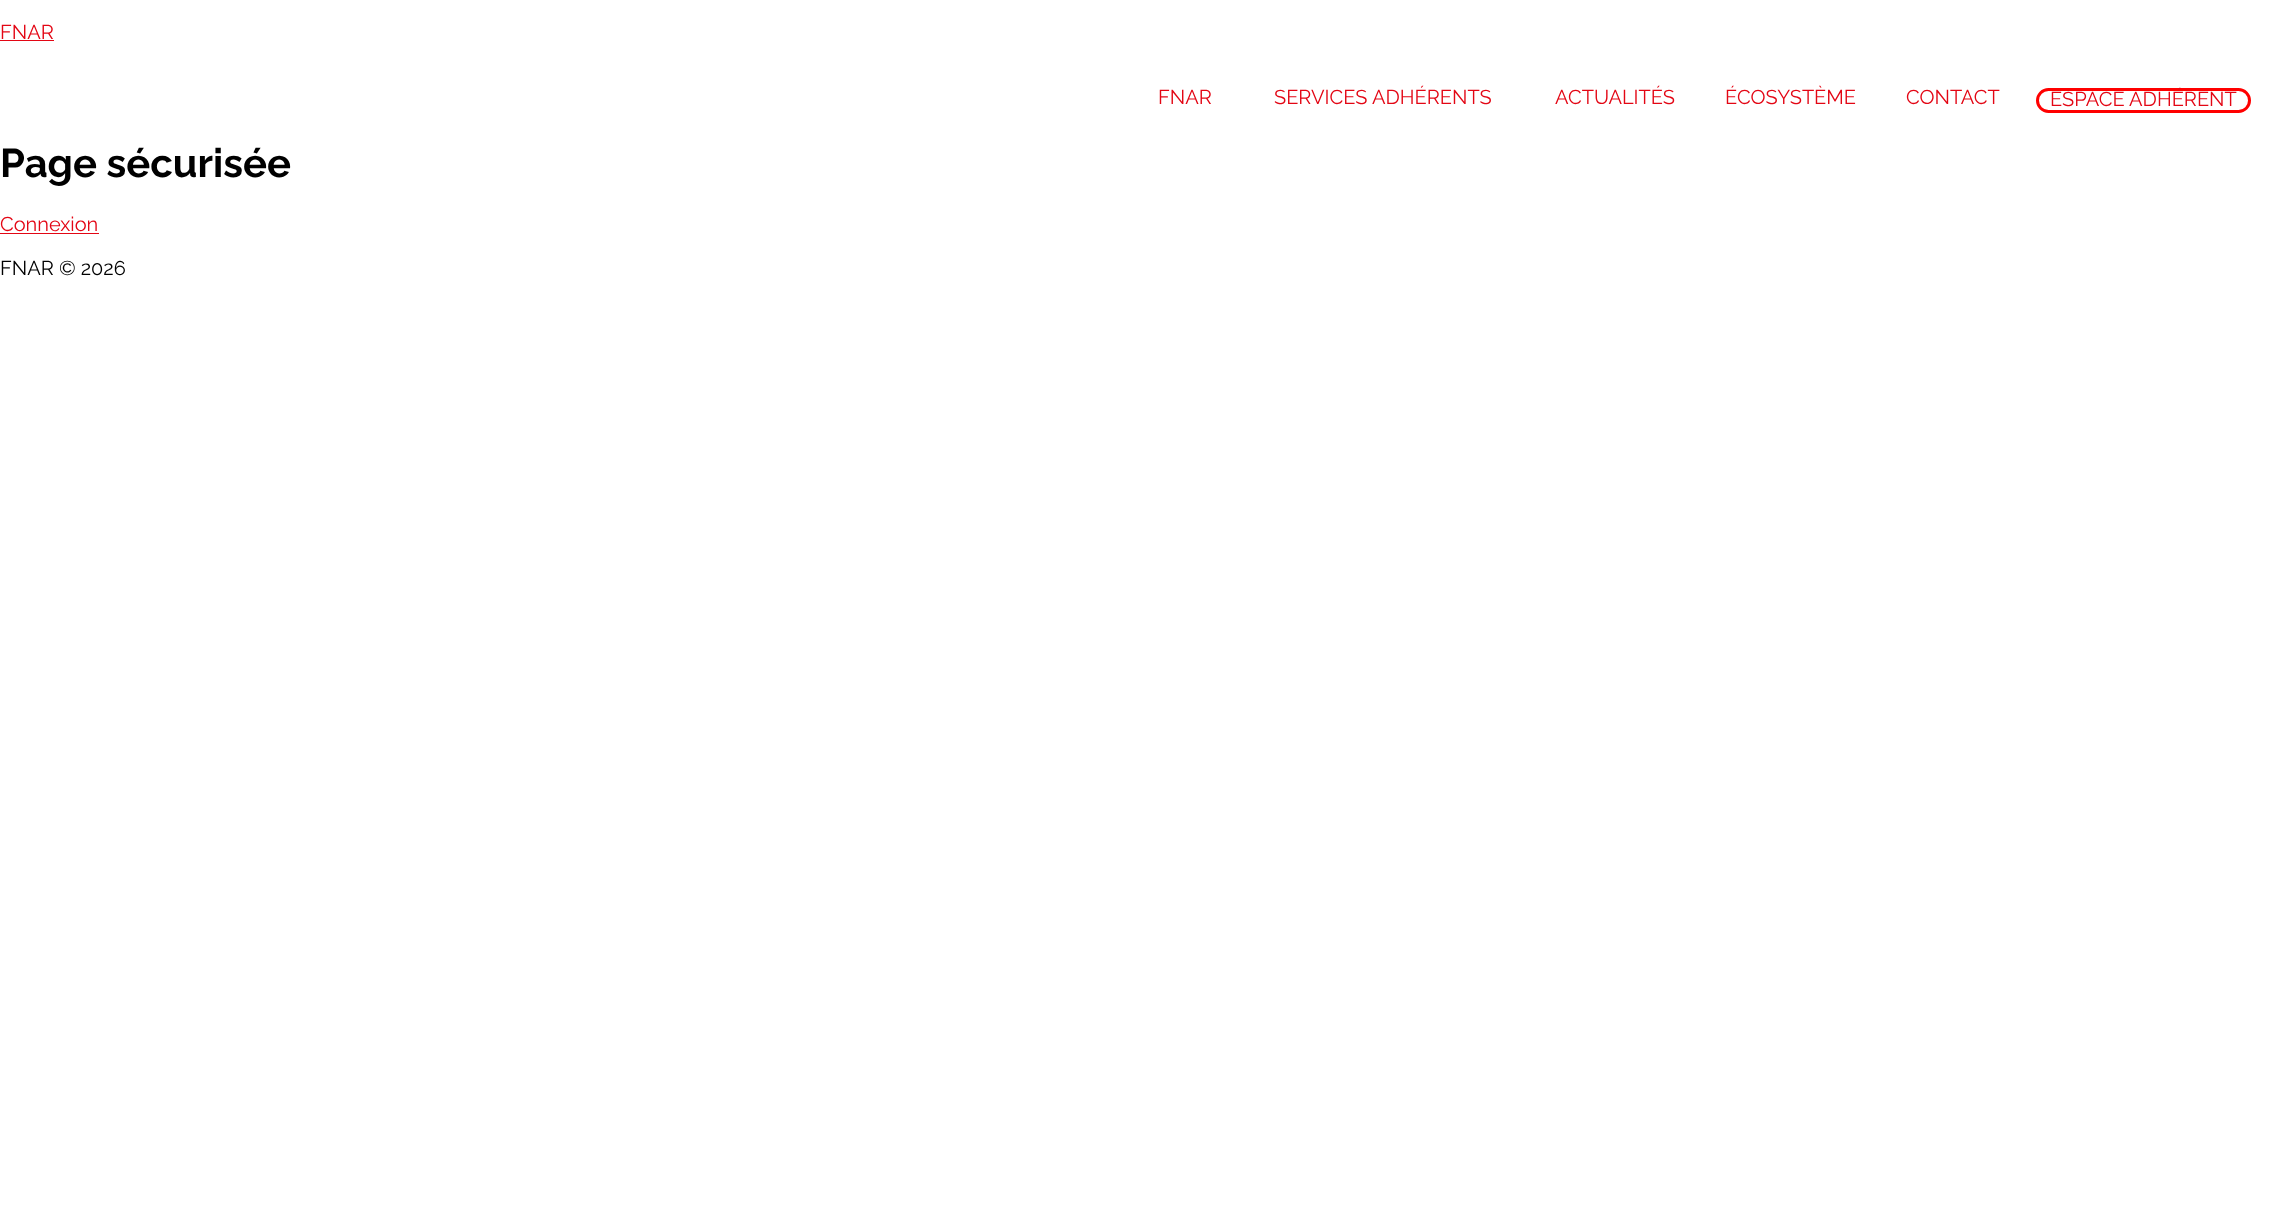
<svg xmlns="http://www.w3.org/2000/svg" xmlns:xlink="http://www.w3.org/1999/xlink" width="2276" height="1222" viewBox="0 0 2276 1222">
<style>
.cls-1{font:20px Raleway;fill:#e30614}
.cls-2{font:bold 40px Raleway;fill:#000000}
.cls-3{font:20px Raleway;fill:#000000}
</style>
<rect width="100%" height="100%" fill="#ffffff"/>
<rect fill="#e30614" x="0" y="40" width="54" height="1"/>
<rect fill="none" stroke="#ff0000" stroke-width="3" x="2037.5" y="89.5" width="212" height="22" rx="11"/>
<rect fill="#e30614" x="0" y="233" width="99" height="1"/>
<text class="cls-1" x="0" y="39">FNAR</text>
<text class="cls-1" x="1158" y="104">FNAR</text>
<text class="cls-1" x="1274" y="104">SERVICES ADHÉRENTS</text>
<text class="cls-1" x="1555" y="104">ACTUALITÉS</text>
<text class="cls-1" x="1725" y="104">ÉCOSYSTÈME</text>
<text class="cls-1" x="1906" y="104">CONTACT</text>
<text class="cls-1" x="2050" y="106">ESPACE ADHÉRENT</text>
<text class="cls-2" x="0" y="177">Page sécurisée</text>
<text class="cls-1" x="0" y="231">Connexion</text>
<text class="cls-3" x="0" y="275">FNAR © 2026</text>
</svg>
